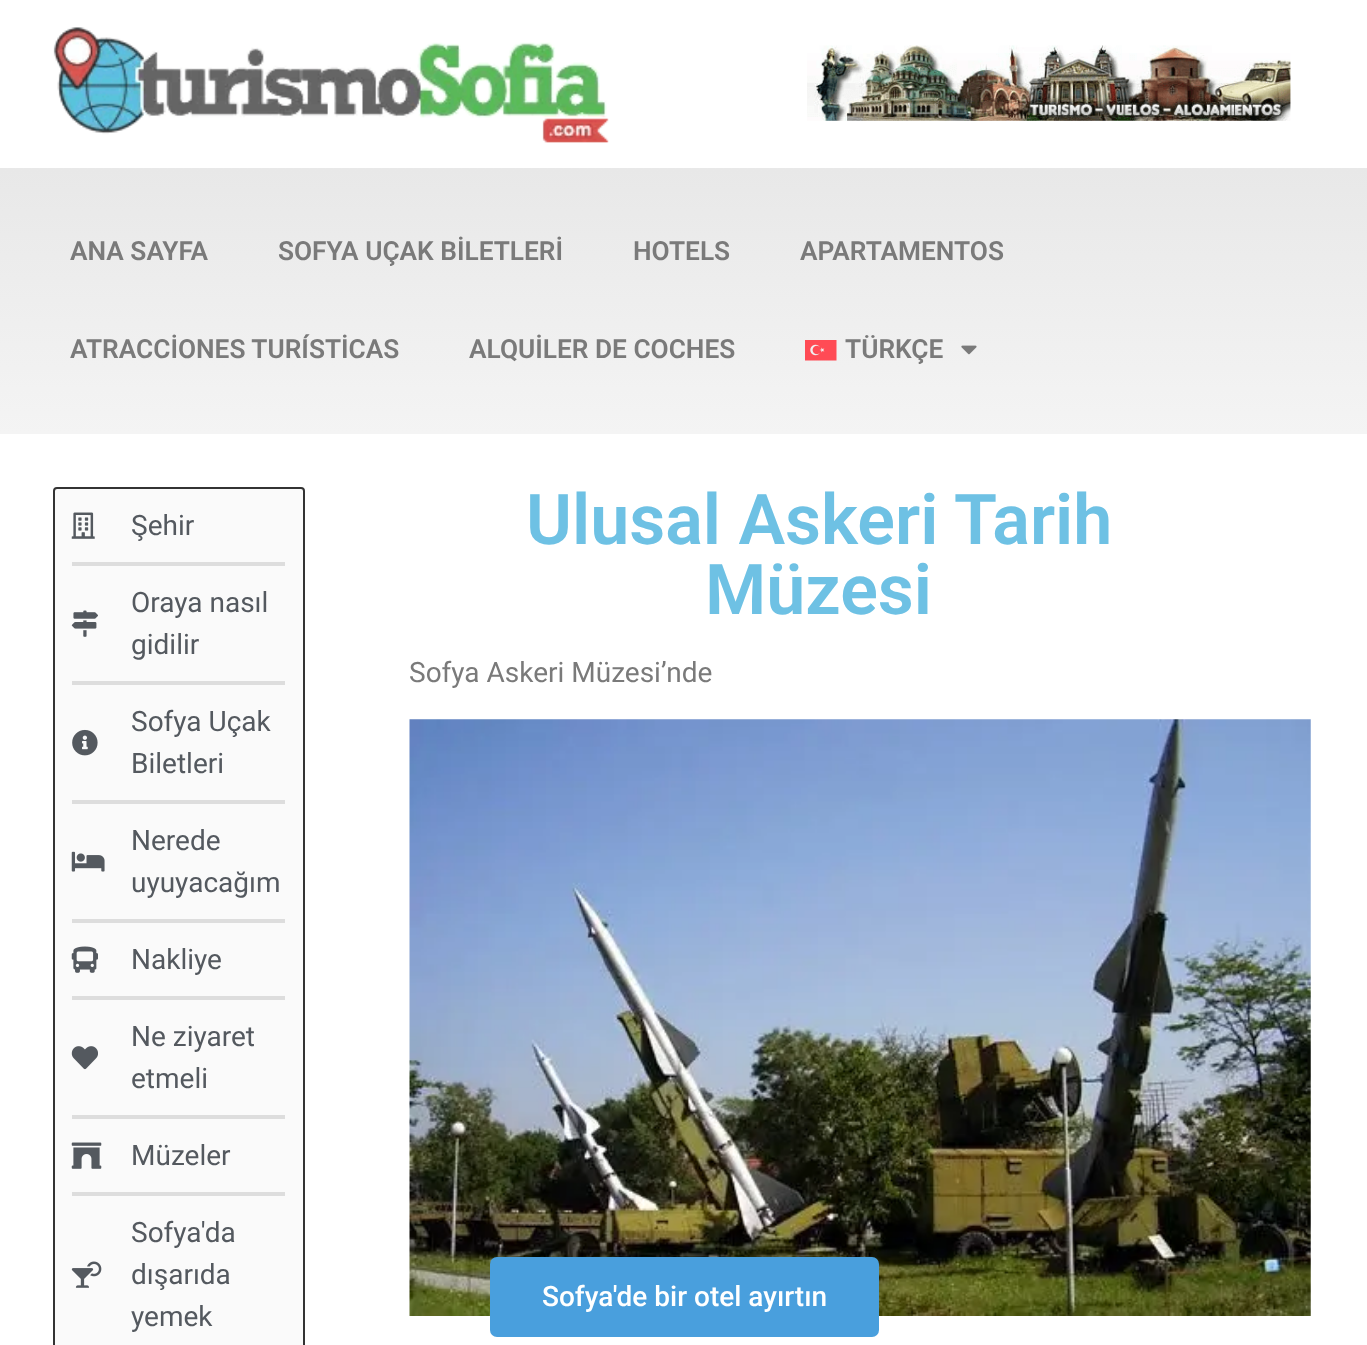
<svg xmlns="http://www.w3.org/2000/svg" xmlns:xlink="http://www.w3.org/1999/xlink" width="1367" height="1345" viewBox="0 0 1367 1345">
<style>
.cls-1{font:600 26.25px Roboto;fill:#7a7a7a}
.cls-2{font:28px Roboto;fill:#54595f}
.cls-3{font:600 70px Roboto;fill:#6ec1e4}
.cls-4{font:28px Roboto;fill:#7a7a7a}
.cls-5{font:500 28px Roboto;fill:#ffffff}
</style>
<defs>
<linearGradient id="g1" gradientUnits="userSpaceOnUse" x1="684" y1="168" x2="684" y2="434"><stop offset="0" stop-color="#e8e8e8"/><stop offset="1" stop-color="#f4f4f4"/></linearGradient>
</defs>
<rect width="100%" height="100%" fill="#ffffff"/>
<image xlink:href="image0.png" x="53" y="27" width="556" height="116"/>
<image xlink:href="image1.png" x="807" y="45" width="484" height="76"/>
<rect fill="url(#g1)" x="0" y="168" width="1367" height="266"/>
<image xlink:href="image2.png" x="805" y="340" width="32" height="21"/>
<image xlink:href="image3.png" x="961" y="345" width="16" height="10"/>
<rect fill="#fafafa" stroke="#333333" stroke-width="2" x="54" y="488" width="250" height="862" rx="3"/>
<image xlink:href="image4.png" x="71" y="512" width="24" height="27"/>
<rect fill="#dddddd" x="72" y="562" width="213" height="4"/>
<image xlink:href="image5.png" x="71" y="610" width="27" height="27"/>
<rect fill="#dddddd" x="72" y="681" width="213" height="4"/>
<image xlink:href="image6.png" x="72" y="729" width="26" height="27"/>
<rect fill="#dddddd" x="72" y="800" width="213" height="4"/>
<image xlink:href="image7.png" x="71" y="851" width="34" height="21"/>
<rect fill="#dddddd" x="72" y="919" width="213" height="4"/>
<image xlink:href="image8.png" x="71" y="946" width="27" height="27"/>
<rect fill="#dddddd" x="72" y="996" width="213" height="4"/>
<image xlink:href="image9.png" x="71" y="1046" width="27" height="24"/>
<rect fill="#dddddd" x="72" y="1115" width="213" height="4"/>
<image xlink:href="image10.png" x="71" y="1142" width="31" height="27"/>
<rect fill="#dddddd" x="72" y="1192" width="213" height="4"/>
<image xlink:href="image11.png" x="71" y="1261" width="31" height="27"/>
<image xlink:href="image12.png" x="409" y="719" width="902" height="597"/>
<rect fill="#499fdd" x="490" y="1257" width="389" height="80" rx="7"/>
<text class="cls-1" x="70" y="260">ANA SAYFA</text>
<text class="cls-1" x="278" y="260">SOFYA UÇAK BİLETLERİ</text>
<text class="cls-1" x="633" y="260">HOTELS</text>
<text class="cls-1" x="800" y="260">APARTAMENTOS</text>
<text class="cls-1" x="70" y="358">ATRACCİONES TURÍSTİCAS</text>
<text class="cls-1" x="469" y="358">ALQUİLER DE COCHES</text>
<text class="cls-1" x="845" y="358">TÜRKÇE</text>
<text class="cls-2" x="131" y="535">Şehir</text>
<text class="cls-2"><tspan x="131" y="612">Oraya nasıl</tspan><tspan x="131" y="654">gidilir</tspan></text>
<text class="cls-2"><tspan x="131" y="731">Sofya Uçak</tspan><tspan x="131" y="773">Biletleri</tspan></text>
<text class="cls-2"><tspan x="131" y="850">Nerede</tspan><tspan x="131" y="892">uyuyacağım</tspan></text>
<text class="cls-2" x="131" y="969">Nakliye</text>
<text class="cls-2"><tspan x="131" y="1046">Ne ziyaret</tspan><tspan x="131" y="1088">etmeli</tspan></text>
<text class="cls-2" x="131" y="1165">Müzeler</text>
<text class="cls-2"><tspan x="131" y="1242">Sofya'da</tspan><tspan x="131" y="1284">dışarıda</tspan><tspan x="131" y="1326">yemek</tspan></text>
<text class="cls-3" x="526" y="544">Ulusal Askeri Tarih</text>
<text class="cls-3" x="705" y="614">Müzesi</text>
<text class="cls-4" x="409" y="682">Sofya Askeri Müzesi’nde</text>
<text class="cls-5" x="542" y="1306">Sofya'de bir otel ayırtın</text>
</svg>
